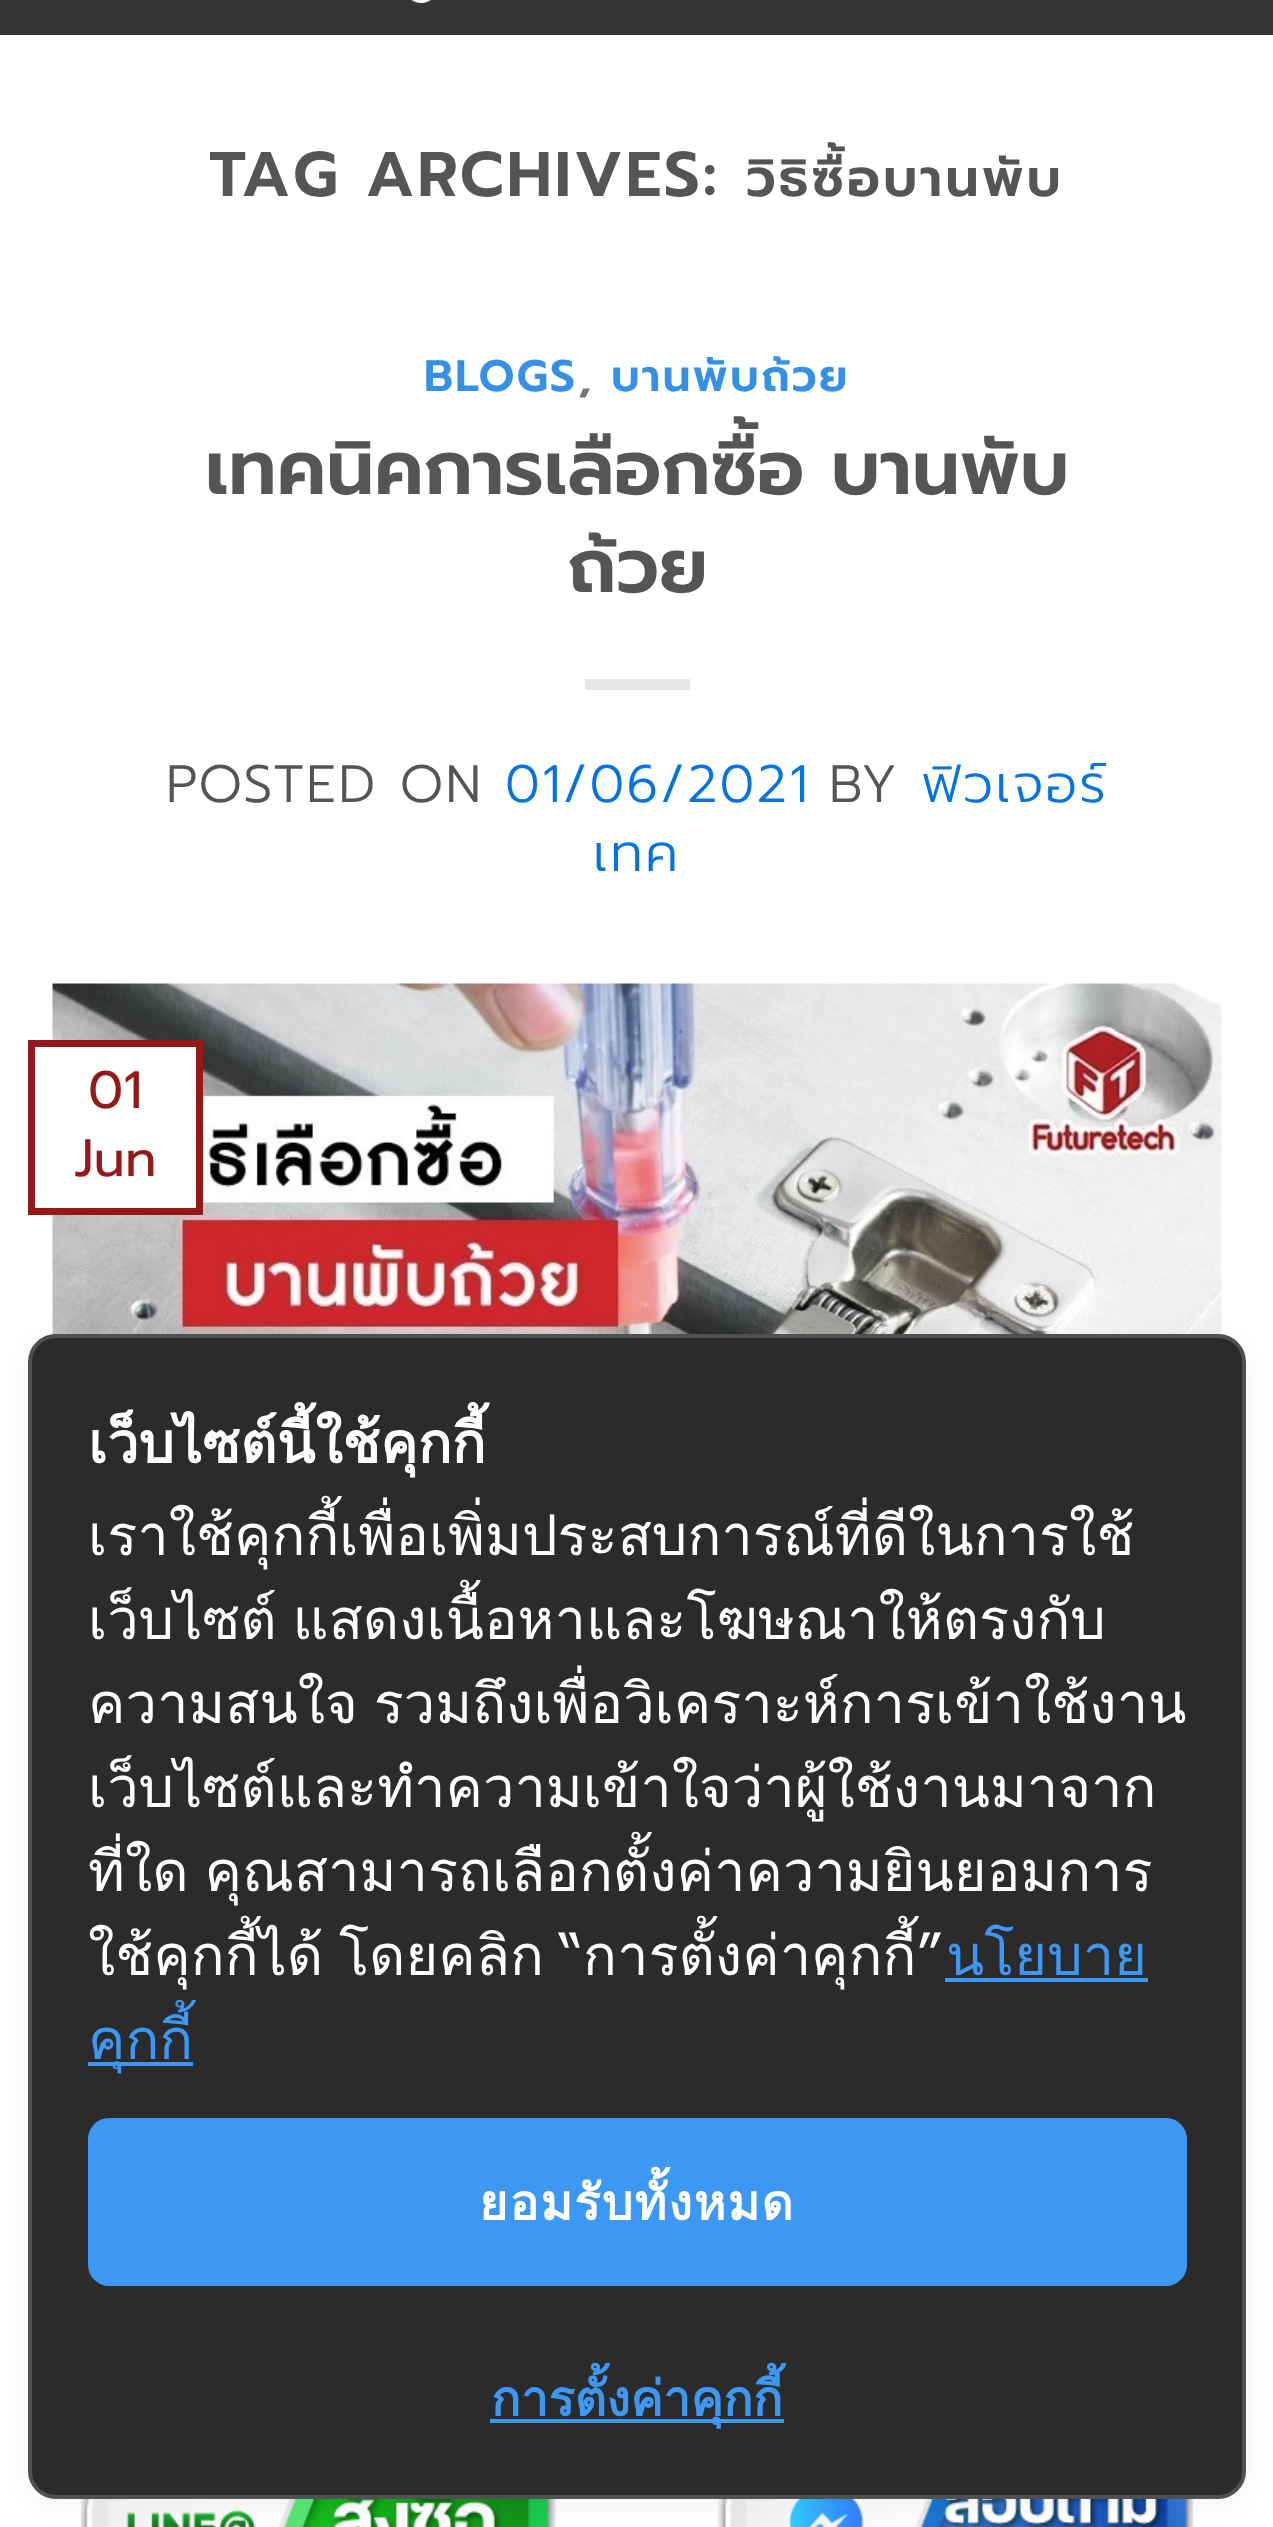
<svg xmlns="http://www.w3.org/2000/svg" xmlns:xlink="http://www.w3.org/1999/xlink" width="1273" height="2527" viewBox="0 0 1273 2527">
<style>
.cls-1{font:600 63px Prompt;letter-spacing:3.1px;fill:#555555}
.cls-2{font:600 52.5px Prompt;letter-spacing:3.1px;fill:#555555}
.cls-3{font:600 44px Prompt;letter-spacing:2.25px;fill:#3590e7}
.cls-4{font:600 44px Prompt;letter-spacing:2.25px;fill:#777777}
.cls-5{font:600 75.6px Prompt;fill:#555555}
.cls-6{font:300 52.5px Prompt;letter-spacing:2.25px;fill:#555555}
.cls-7{font:300 52.5px Prompt;letter-spacing:2.25px;fill:#0374e1}
.cls-8{font:52.5px Prompt;fill:#951919}
.cls-9{font:bold 56px Loma;fill:#ffffff}
.cls-10{font:56px Loma;fill:#ffffff}
.cls-11{font:56px Loma;fill:#3d98f3}
.cls-12{font:bold 49px Loma;letter-spacing:1.5px;fill:#ffffff}
.cls-13{font:bold 49px Loma;fill:#3d98f3}
</style>
<rect width="100%" height="100%" fill="#ffffff"/>
<rect fill="#343434" x="0" y="0" width="1273" height="35"/>
<image xlink:href="image0.png" x="411" y="0" width="21" height="3"/>
<rect fill="#e6e6e6" x="585" y="679" width="105" height="11"/>
<image xlink:href="image1.png" x="52" y="983" width="1170" height="352"/>
<rect fill="#ffffff" x="52" y="1047" width="144" height="161"/>
<rect fill="none" stroke="#951919" stroke-width="7" x="31.5" y="1043.5" width="168" height="168"/>
<image xlink:href="image2.png" x="80" y="2499" width="476" height="28"/>
<image xlink:href="image3.png" x="718" y="2499" width="476" height="28"/>
<rect fill="#000000" fill-opacity="0.05" filter="blur(14px)" x="28" y="1341" width="1218" height="1165" rx="28"/>
<rect fill="#2b2b2b" stroke="#505050" stroke-width="4" x="30" y="1336" width="1214" height="1161" rx="26"/>
<rect fill="#3d98f3" x="945" y="1978" width="203" height="4"/>
<rect fill="#3d98f3" x="88" y="2062" width="105" height="4"/>
<rect fill="#3d98f3" x="88" y="2118" width="1099" height="168" rx="21"/>
<rect fill="#3d98f3" x="490" y="2419" width="294" height="4"/>
<text class="cls-1" x="209" y="196">TAG ARCHIVES:</text>
<text class="cls-2" x="746" y="196">วิธิซื้อบานพับ</text>
<text class="cls-3" x="424" y="391">BLOGS</text>
<text class="cls-3" x="611" y="391">บานพับถ้วย</text>
<text class="cls-4" x="578" y="391">,</text>
<text class="cls-5" x="205" y="494">เทคนิคการเลือกซื้อ บานพับ</text>
<text class="cls-5" x="567" y="592">ถ้วย</text>
<text class="cls-6" x="166" y="802">POSTED ON</text>
<text class="cls-7" x="505" y="802">01/06/2021</text>
<text class="cls-6" x="829" y="802">BY</text>
<text class="cls-7" x="921" y="802">ฟิวเจอร์</text>
<text class="cls-7" x="593" y="871">เทค</text>
<text class="cls-8" x="88" y="1108">01</text>
<text class="cls-8" x="74" y="1176">Jun</text>
<text class="cls-9" x="88" y="1463">เว็บไซต์นี้ใช้คุกกี้</text>
<text class="cls-10"><tspan x="88" y="1555">เราใช้คุกกี้เพื่อเพิ่มประสบการณ์ที่ดีในการใช้</tspan><tspan x="88" y="1639" word-spacing="-3">เว็บไซต์ แสดงเนื้อหาและโฆษณาให้ตรงกับ</tspan><tspan x="88" y="1723" word-spacing="-3">ความสนใจ รวมถึงเพื่อวิเคราะห์การเข้าใช้งาน</tspan><tspan x="88" y="1807">เว็บไซต์และทำความเข้าใจว่าผู้ใช้งานมาจาก</tspan><tspan x="88" y="1891" word-spacing="-3">ที่ใด คุณสามารถเลือกตั้งค่าความยินยอมการ</tspan><tspan x="88" y="1975" word-spacing="-3">ใช้คุกกี้ได้ โดยคลิก “การตั้งค่าคุกกี้”</tspan></text>
<text class="cls-11" x="946" y="1975">นโยบาย</text>
<text class="cls-11" x="88" y="2059">คุกกี้</text>
<text class="cls-12" x="479" y="2220">ยอมรับทั้งหมด</text>
<text class="cls-13" x="491" y="2416">การตั้งค่าคุกกี้</text>
</svg>
